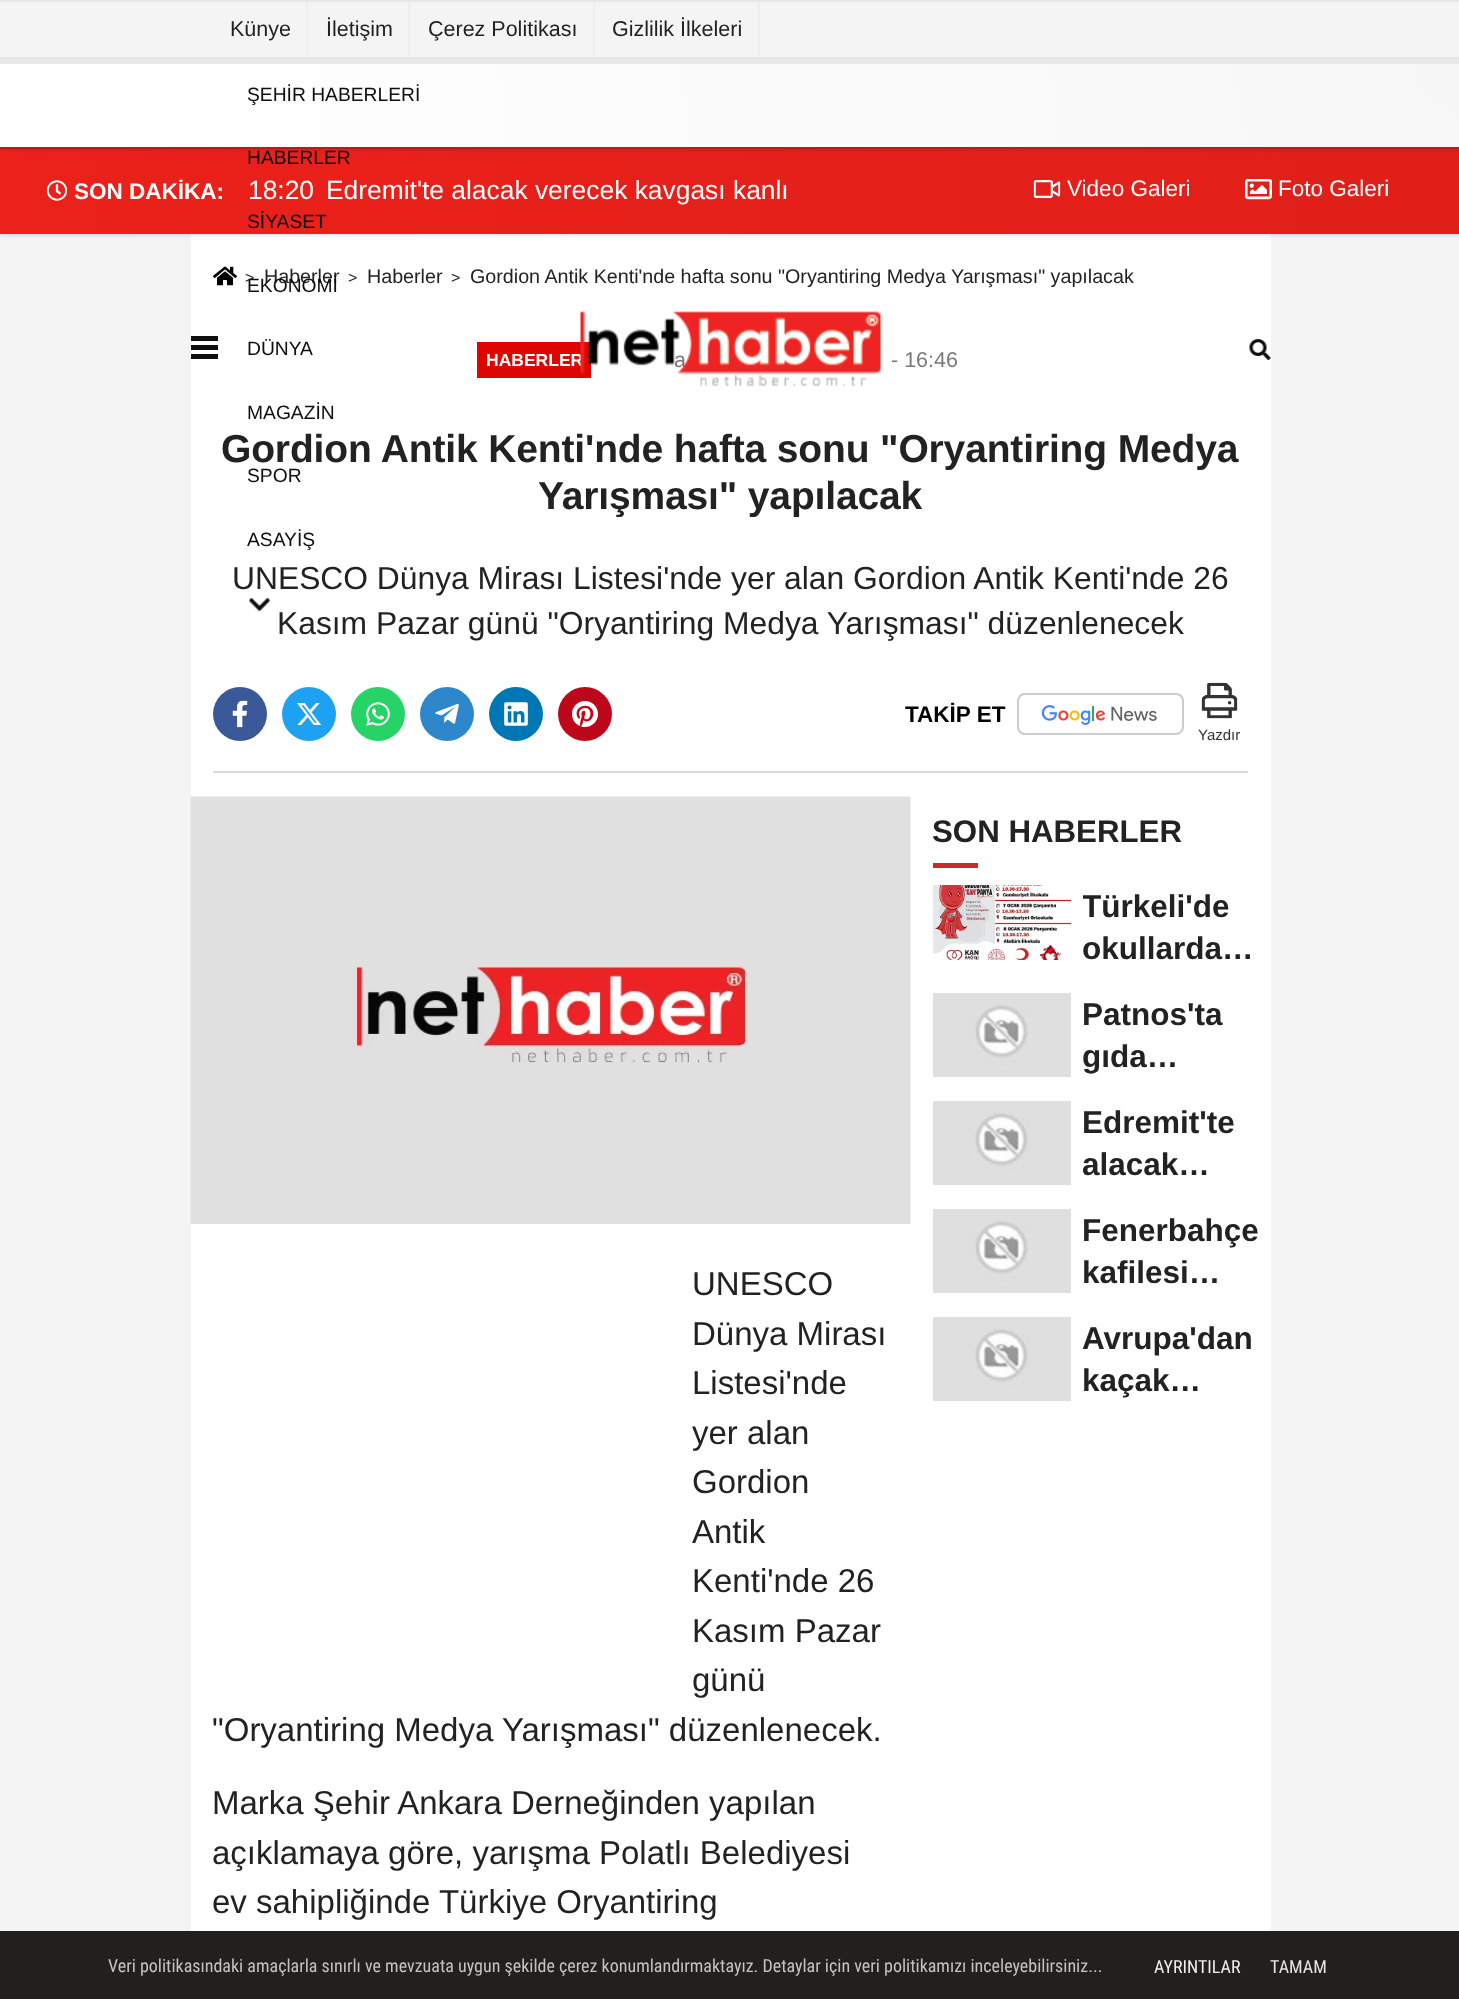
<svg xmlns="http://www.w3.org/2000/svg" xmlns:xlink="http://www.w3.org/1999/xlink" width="1459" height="1999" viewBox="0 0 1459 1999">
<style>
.cls-1{font:21.5px Liberation Sans;fill:#222222}
.cls-2{font:19.25px Liberation Sans;fill:#0f0f0f}
.cls-3{font:bold 22.5px Liberation Sans;fill:#ffffff}
.cls-4{font:26.4px Liberation Sans;fill:#ffffff}
.cls-5{font:22.5px Liberation Sans;fill:#ffffff}
.cls-6{font:16px Liberation Sans;fill:#222222}
.cls-7{font:19.7px Liberation Sans;fill:#222222}
.cls-8{font:bold 17.5px Liberation Sans;fill:#ffffff}
.cls-9{font:21.5px Liberation Sans;fill:#7a7a7a}
.cls-10{font:bold 39px Liberation Sans;letter-spacing:-0.15px;fill:#222222}
.cls-11{font:31.8px Liberation Sans;fill:#222222}
.cls-12{font:bold 22.5px Liberation Sans;fill:#000000}
.cls-13{font:15px Liberation Sans;fill:#333333}
.cls-14{font:bold 31.25px Liberation Sans;fill:#222222}
.cls-15{font:bold 31.5px Liberation Sans;fill:#222222}
.cls-16{font:33px Liberation Sans;fill:#222222}
.cls-17{font:18px Roboto Condensed;fill:#c4c3c3}
.cls-18{font:18px Roboto Condensed;fill:#efefef}
.cls-19{font:18px Roboto Condensed;fill:#e4e4e4}
</style>
<defs>
<linearGradient id="g1" gradientUnits="userSpaceOnUse" x1="0" y1="191" x2="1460" y2="191"><stop offset="0" stop-color="#eb211a"/><stop offset="1" stop-color="#e01f19"/></linearGradient>
<radialGradient id="g2" gradientUnits="userSpaceOnUse" cx="1460" cy="63" r="1462"><stop offset="0" stop-color="#f7f7f7"/><stop offset="1" stop-color="#ffffff"/></radialGradient>
<clipPath id="clip1"><rect x="1083" y="885" width="180" height="84"/></clipPath>
</defs>
<rect width="100%" height="100%" fill="#f4f4f4"/>
<rect fill="#221f1f" x="0" y="1931" width="1459" height="68"/>
<rect fill="#e6e6e6" x="0" y="0" width="1459" height="2"/>
<rect fill="#eeeeee" x="306" y="2" width="2" height="55"/>
<rect fill="#eeeeee" x="408" y="2" width="2" height="55"/>
<rect fill="#eeeeee" x="593" y="2" width="2" height="55"/>
<rect fill="#eeeeee" x="758" y="2" width="2" height="55"/>
<rect fill="#e6e6e6" x="0" y="57" width="1459" height="2"/>
<rect fill="#ffffff" x="191" y="234" width="1080" height="1697"/>
<rect fill="#000000" fill-opacity="0.1" filter="blur(1.5px)" x="0" y="150" width="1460" height="86"/>
<rect fill="url(#g1)" x="0" y="149" width="1459" height="85"/>
<rect fill="#000000" fill-opacity="0.1" filter="blur(1.5px)" x="0" y="60" width="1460" height="90"/>
<rect fill="url(#g2)" x="0" y="64" width="1459" height="83"/>
<rect fill="#ebe7e6" x="0" y="59" width="1459" height="5"/>
<rect fill="#bd1a15" x="0" y="147" width="1459" height="2"/>
<rect fill="#0f0f0f" x="191" y="336" width="27" height="5"/>
<rect fill="#0f0f0f" x="191" y="345" width="27" height="5"/>
<rect fill="#0f0f0f" x="191" y="354" width="27" height="5"/>
<image xlink:href="image0.png" x="248" y="597" width="23" height="15"/>
<image xlink:href="image2.png" x="1249" y="339" width="22" height="21"/>
<image xlink:href="image3.png" x="46" y="180" width="22" height="21"/>
<image xlink:href="image4.png" x="1033" y="180" width="28" height="18"/>
<image xlink:href="image5.png" x="1245" y="179" width="27" height="21"/>
<image xlink:href="image6.png" x="213" y="266" width="24" height="20"/>
<rect fill="#de0700" x="477" y="342" width="114" height="36"/>
<circle fill="#3b5998" cx="240" cy="714" r="27"/>
<image xlink:href="image7.png" x="232" y="700" width="16" height="28"/>
<circle fill="#1da1f2" cx="309" cy="714" r="27"/>
<image xlink:href="image8.png" x="297" y="703" width="24" height="22"/>
<circle fill="#25d366" cx="378" cy="714" r="27"/>
<image xlink:href="image9.png" x="366" y="702" width="24" height="24"/>
<circle fill="#2e87ca" cx="447" cy="714" r="27"/>
<image xlink:href="image10.png" x="435" y="704" width="24" height="20"/>
<circle fill="#0077b5" cx="516" cy="714" r="27"/>
<image xlink:href="image11.png" x="504" y="702" width="24" height="24"/>
<circle fill="#bd081c" cx="585" cy="714" r="27"/>
<image xlink:href="image12.png" x="572" y="701" width="26" height="26"/>
<rect fill="none" stroke="#cccccc" stroke-width="2" x="1018" y="694" width="165" height="40" rx="7"/>
<image xlink:href="image13.png" x="1041" y="705" width="116" height="20"/>
<image xlink:href="image14.png" x="1201" y="682" width="37" height="37"/>
<rect fill="#d9d9d9" x="213" y="771" width="1035" height="2"/>
<rect fill="#cc292b" x="933" y="863" width="45" height="5"/>
<image xlink:href="image15.png" x="933" y="885" width="138" height="75"/>
<image xlink:href="image16.png" x="933" y="993" width="138" height="84"/>
<image xlink:href="image16.png" x="933" y="1101" width="138" height="84"/>
<image xlink:href="image16.png" x="933" y="1209" width="138" height="84"/>
<image xlink:href="image16.png" x="933" y="1317" width="138" height="84"/>
<image xlink:href="image17.png" x="190" y="796" width="721" height="428"/>
<text class="cls-1" x="230" y="36">Künye</text>
<text class="cls-1" x="326" y="36">İletişim</text>
<text class="cls-1" x="428" y="36">Çerez Politikası</text>
<text class="cls-1" x="612" y="36">Gizlilik İlkeleri</text>
<text class="cls-2" x="247" y="101">ŞEHİR HABERLERİ</text>
<text class="cls-2" x="247" y="164">HABERLER</text>
<text class="cls-2" x="247" y="228">SİYASET</text>
<text class="cls-2" x="247" y="355">DÜNYA</text>
<text class="cls-2" x="247" y="419">MAGAZİN</text>
<text class="cls-2" x="247" y="482">SPOR</text>
<text class="cls-2" x="247" y="546">ASAYİŞ</text>
<text class="cls-3" x="74" y="199">SON DAKİKA:</text>
<text class="cls-4" x="248" y="199">18:20</text>
<text class="cls-4" x="326" y="199">Edremit'te alacak verecek kavgası kanlı</text>
<text class="cls-5" x="1067" y="196">Video Galeri</text>
<text class="cls-5" x="1278" y="196">Foto Galeri</text>
<text class="cls-6" x="245" y="283">&gt;</text>
<text class="cls-7" x="264" y="283">Haberler</text>
<text class="cls-2" x="247" y="292">EKONOMİ</text>
<text class="cls-6" x="348" y="283">&gt;</text>
<text class="cls-7" x="367" y="283">Haberler</text>
<text class="cls-6" x="451" y="283">&gt;</text>
<text class="cls-7" x="470" y="283">Gordion Antik Kenti'nde hafta sonu "Oryantiring Medya Yarışması" yapılacak</text>
<text class="cls-8" x="486" y="366">HABERLER</text>
<text class="cls-9" x="674" y="367">a</text>
<image xlink:href="image1.png" x="580" y="311" width="301" height="76"/>
<text class="cls-9" x="891" y="367">- 16:46</text>
<text class="cls-10" x="221" y="462">Gordion Antik Kenti'nde hafta sonu "Oryantiring Medya</text>
<text class="cls-10" x="538" y="509">Yarışması" yapılacak</text>
<text class="cls-11" x="232" y="589">UNESCO Dünya Mirası Listesi'nde yer alan Gordion Antik Kenti'nde 26</text>
<text class="cls-11" x="277" y="634">Kasım Pazar günü "Oryantiring Medya Yarışması" düzenlenecek</text>
<text class="cls-12" x="905" y="722">TAKİP ET</text>
<text class="cls-13" x="1198" y="740">Yazdır</text>
<text class="cls-14" x="932" y="842">SON HABERLER</text>
<g clip-path="url(#clip1)">
<text class="cls-15" x="1082" y="917">Türkeli'de</text>
</g>
<text class="cls-15" x="1082" y="959">okullarda…</text>
<text class="cls-15"><tspan x="1082" y="1025">Patnos'ta</tspan><tspan x="1082" y="1067">gıda…</tspan></text>
<text class="cls-15"><tspan x="1082" y="1133">Edremit'te</tspan><tspan x="1082" y="1175">alacak…</tspan></text>
<text class="cls-15"><tspan x="1082" y="1241">Fenerbahçe</tspan><tspan x="1082" y="1283">kafilesi…</tspan></text>
<text class="cls-15"><tspan x="1082" y="1349">Avrupa'dan</tspan><tspan x="1082" y="1391">kaçak…</tspan></text>
<text class="cls-16"><tspan x="692" y="1295">UNESCO</tspan><tspan x="692" y="1345">Dünya Mirası</tspan><tspan x="692" y="1394">Listesi'nde</tspan><tspan x="692" y="1444">yer alan</tspan><tspan x="692" y="1493">Gordion</tspan><tspan x="692" y="1543">Antik</tspan><tspan x="692" y="1592">Kenti'nde 26</tspan><tspan x="692" y="1642">Kasım Pazar</tspan><tspan x="692" y="1691">günü</tspan></text>
<text class="cls-16" x="212" y="1741">"Oryantiring Medya Yarışması" düzenlenecek.</text>
<text class="cls-16"><tspan x="212" y="1814">Marka Şehir Ankara Derneğinden yapılan</tspan><tspan x="212" y="1864">açıklamaya göre, yarışma Polatlı Belediyesi</tspan><tspan x="212" y="1913">ev sahipliğinde Türkiye Oryantiring</tspan></text>
<text class="cls-17" x="108" y="1972">Veri politikasındaki amaçlarla sınırlı ve mevzuata uygun şekilde çerez konumlandırmaktayız. Detaylar için veri politikamızı inceleyebilirsiniz...</text>
<text class="cls-18" x="1154" y="1973">AYRINTILAR</text>
<text class="cls-19" x="1270" y="1973">TAMAM</text>
</svg>
